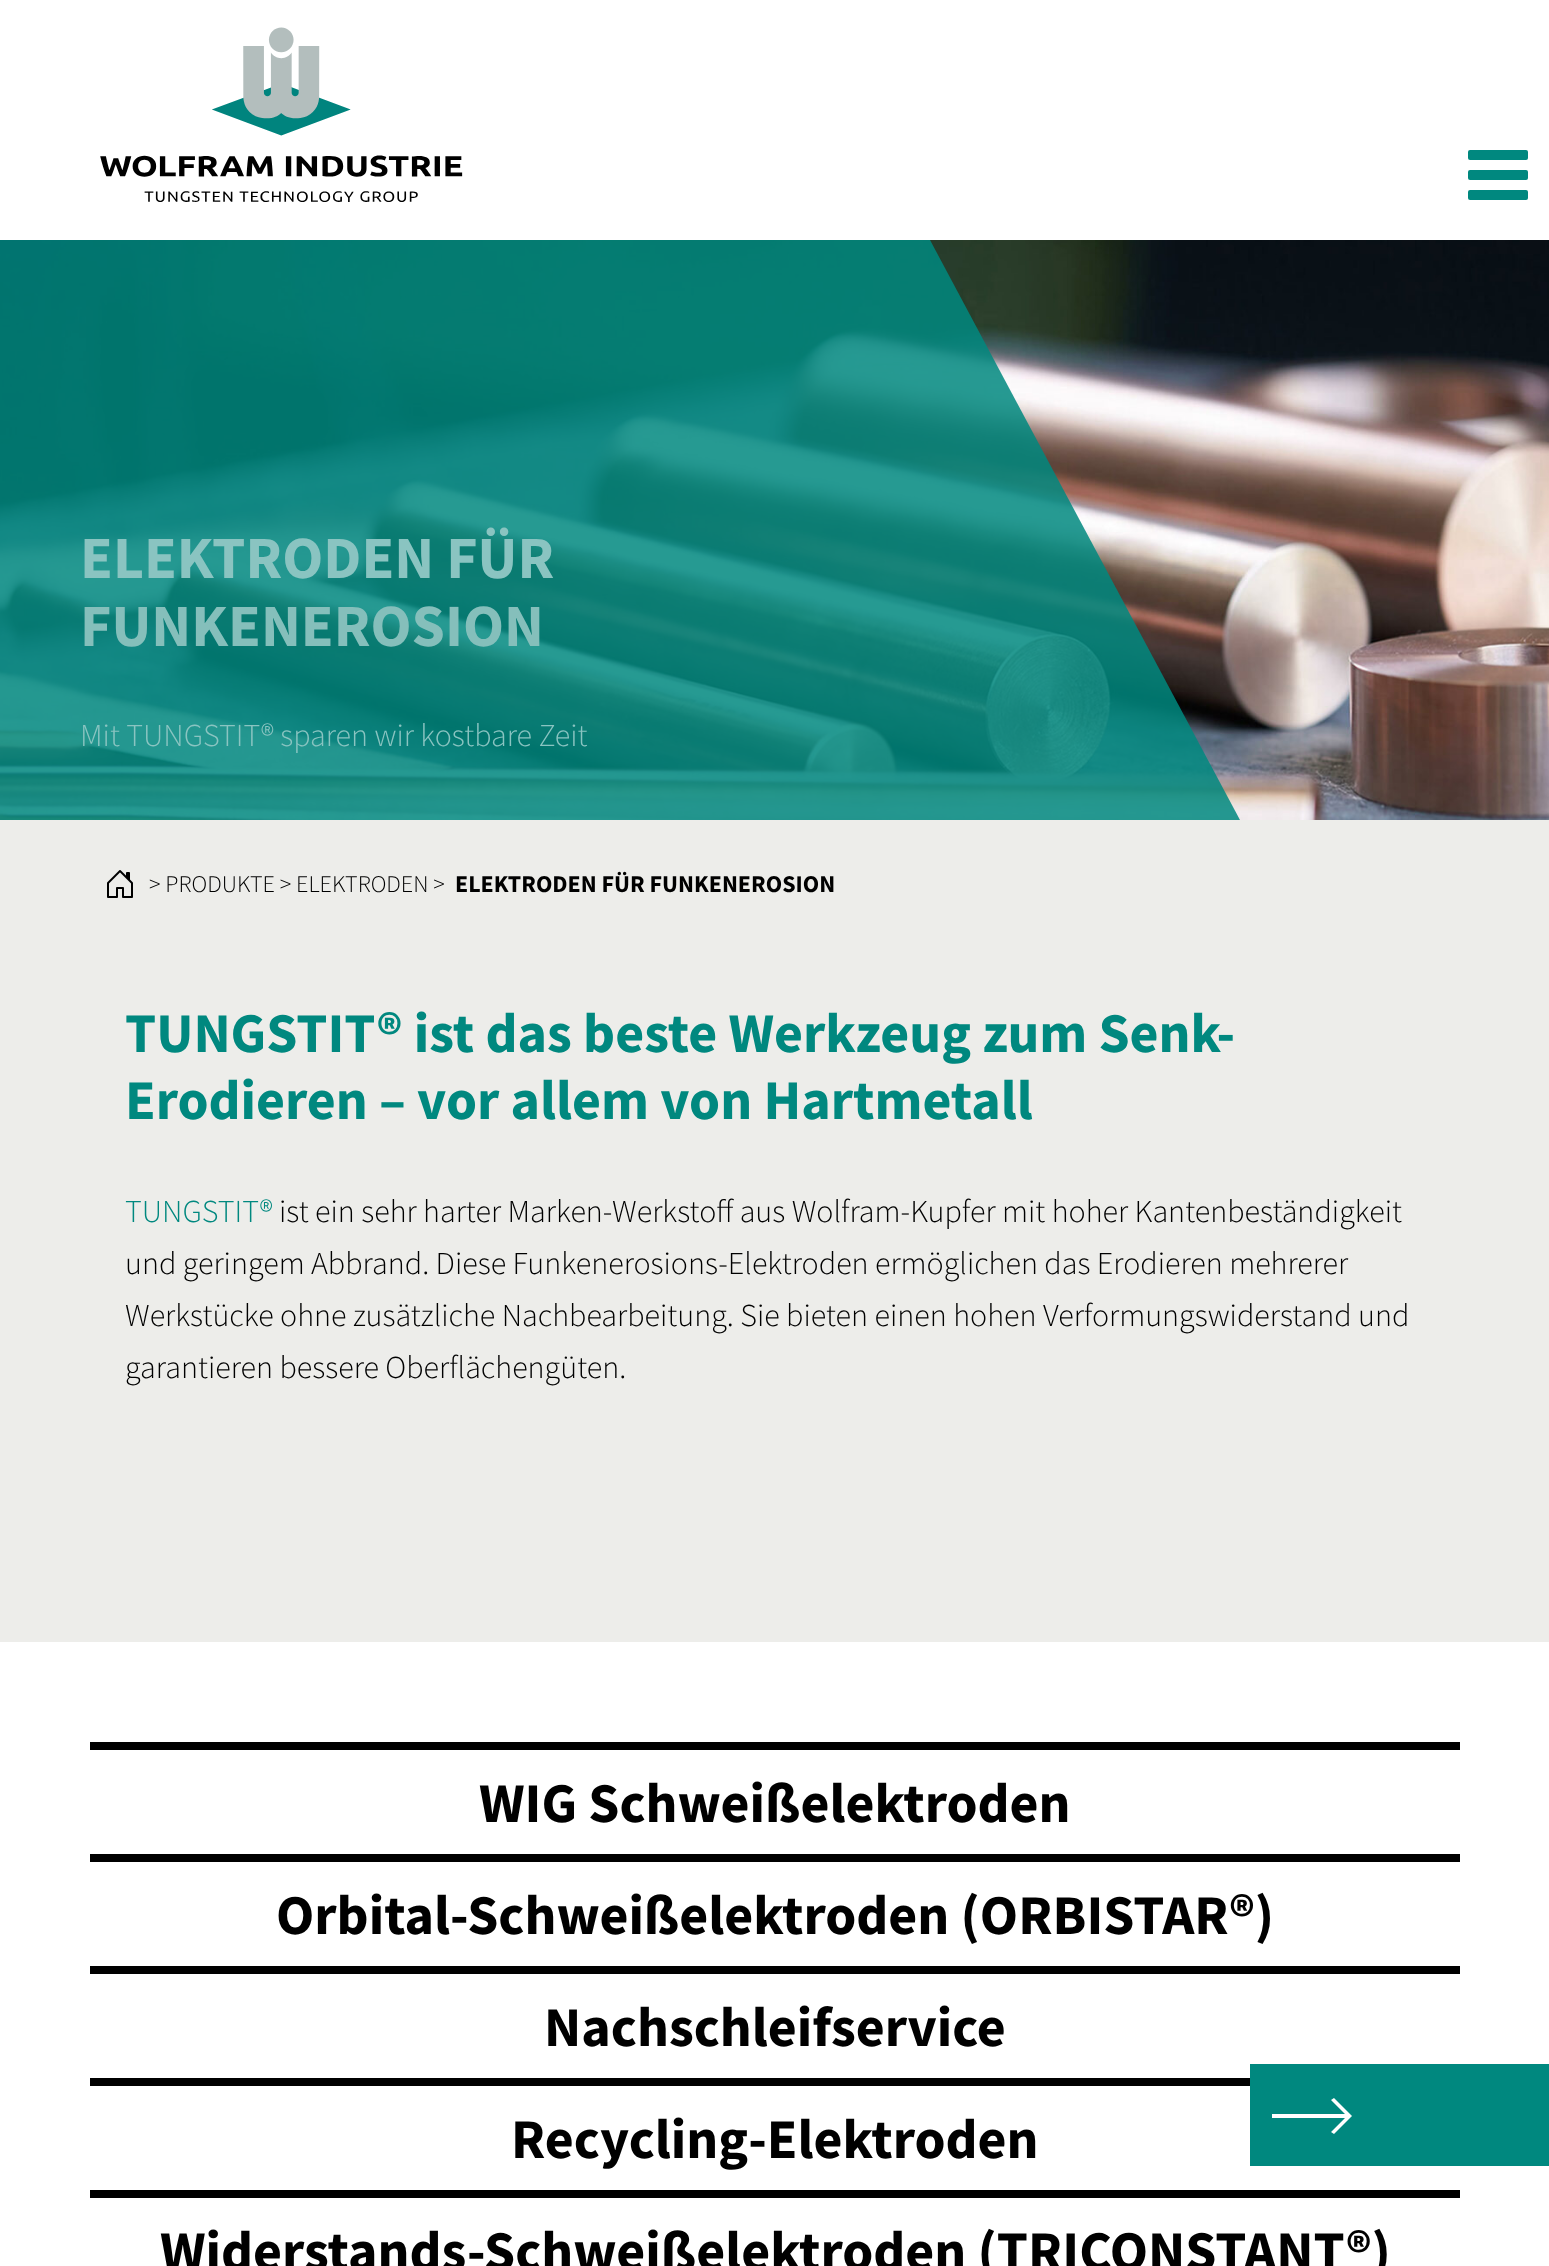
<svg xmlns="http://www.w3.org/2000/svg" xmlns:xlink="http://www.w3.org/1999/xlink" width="1549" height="2266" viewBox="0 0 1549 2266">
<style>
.cls-1{font:bold 60px Source Sans Pro;fill:#8ac4c1}
.cls-2{font:bold 60px Source Sans Pro;fill:#85bfbb}
.cls-3{font:300 32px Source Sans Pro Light;fill:#8ac4c1}
.cls-4{font:300 24px Source Sans Pro Light;fill:#000000}
.cls-5{font:bold 24px Source Sans Pro;fill:#000000}
.cls-6{font:bold 56px Source Sans Pro;fill:#00887f}
.cls-7{font:300 32px Source Sans Pro Light;fill:#00887f}
.cls-8{font:300 32px Source Sans Pro Light;fill:#000000}
.cls-9{font:bold 56px Source Sans Pro;fill:#000000}
</style>
<rect width="100%" height="100%" fill="#ffffff"/>
<image xlink:href="image0.png" x="100" y="27" width="363" height="175"/>
<rect fill="#00887f" x="1468" y="170" width="60" height="10" rx="2"/>
<rect fill="#00887f" x="1468" y="150" width="60" height="10" rx="2"/>
<rect fill="#00887f" x="1468" y="190" width="60" height="10" rx="2"/>
<rect fill="#00887f" x="1250" y="2064" width="299" height="102"/>
<path fill="#ffffff" fill-rule="evenodd" d="M1272 2118V2114H1345L1331 2100L1334 2098L1352 2116L1334 2134L1331 2132L1345 2118Z"/>
<image xlink:href="image1.png" x="0" y="240" width="1549" height="580"/>
<path fill="#00887f" fill-opacity="0.85" d="M0 240V820H1240L930 240Z"/>
<rect fill="#ededea" x="0" y="820" width="1549" height="822"/>
<image xlink:href="image2.png" x="107" y="870" width="26" height="28"/>
<rect fill="#000000" x="90" y="1742" width="1370" height="8"/>
<rect fill="#000000" x="90" y="1854" width="1370" height="8"/>
<rect fill="#000000" x="90" y="1966" width="1370" height="8"/>
<rect fill="#000000" x="90" y="2078" width="1160" height="8"/>
<rect fill="#000000" x="90" y="2190" width="1370" height="8"/>
<text class="cls-1" x="80" y="578">ELEKTRODEN FÜR</text>
<text class="cls-2" x="80" y="646">FUNKENEROSION</text>
<text class="cls-3" x="80" y="746">Mit TUNGSTIT® sparen wir kostbare Zeit</text>
<text class="cls-4" x="149" y="892">&gt; PRODUKTE &gt; ELEKTRODEN &gt;</text>
<text class="cls-5" x="455" y="892">ELEKTRODEN FÜR FUNKENEROSION</text>
<text class="cls-6"><tspan x="125" y="1052">TUNGSTIT® ist das beste Werkzeug zum Senk-</tspan><tspan x="125" y="1119">Erodieren – vor allem von Hartmetall</tspan></text>
<text class="cls-7" x="125" y="1222">TUNGSTIT®</text>
<text class="cls-8" x="279" y="1222">ist ein sehr harter Marken-Werkstoff aus Wolfram-Kupfer mit hoher Kantenbeständigkeit</text>
<text class="cls-8"><tspan x="125" y="1274">und geringem Abbrand. Diese Funkenerosions-Elektroden ermöglichen das Erodieren mehrerer</tspan><tspan x="125" y="1326">Werkstücke ohne zusätzliche Nachbearbeitung. Sie bieten einen hohen Verformungswiderstand und</tspan><tspan x="125" y="1378">garantieren bessere Oberflächengüten.</tspan></text>
<text class="cls-9" x="479" y="1822">WIG Schweißelektroden</text>
<text class="cls-9" x="276" y="1934">Orbital-Schweißelektroden (ORBISTAR®)</text>
<text class="cls-9" x="544" y="2046">Nachschleifservice</text>
<text class="cls-9" x="511" y="2158">Recycling-Elektroden</text>
<text class="cls-9" x="160" y="2270">Widerstands-Schweißelektroden (TRICONSTANT®)</text>
</svg>
